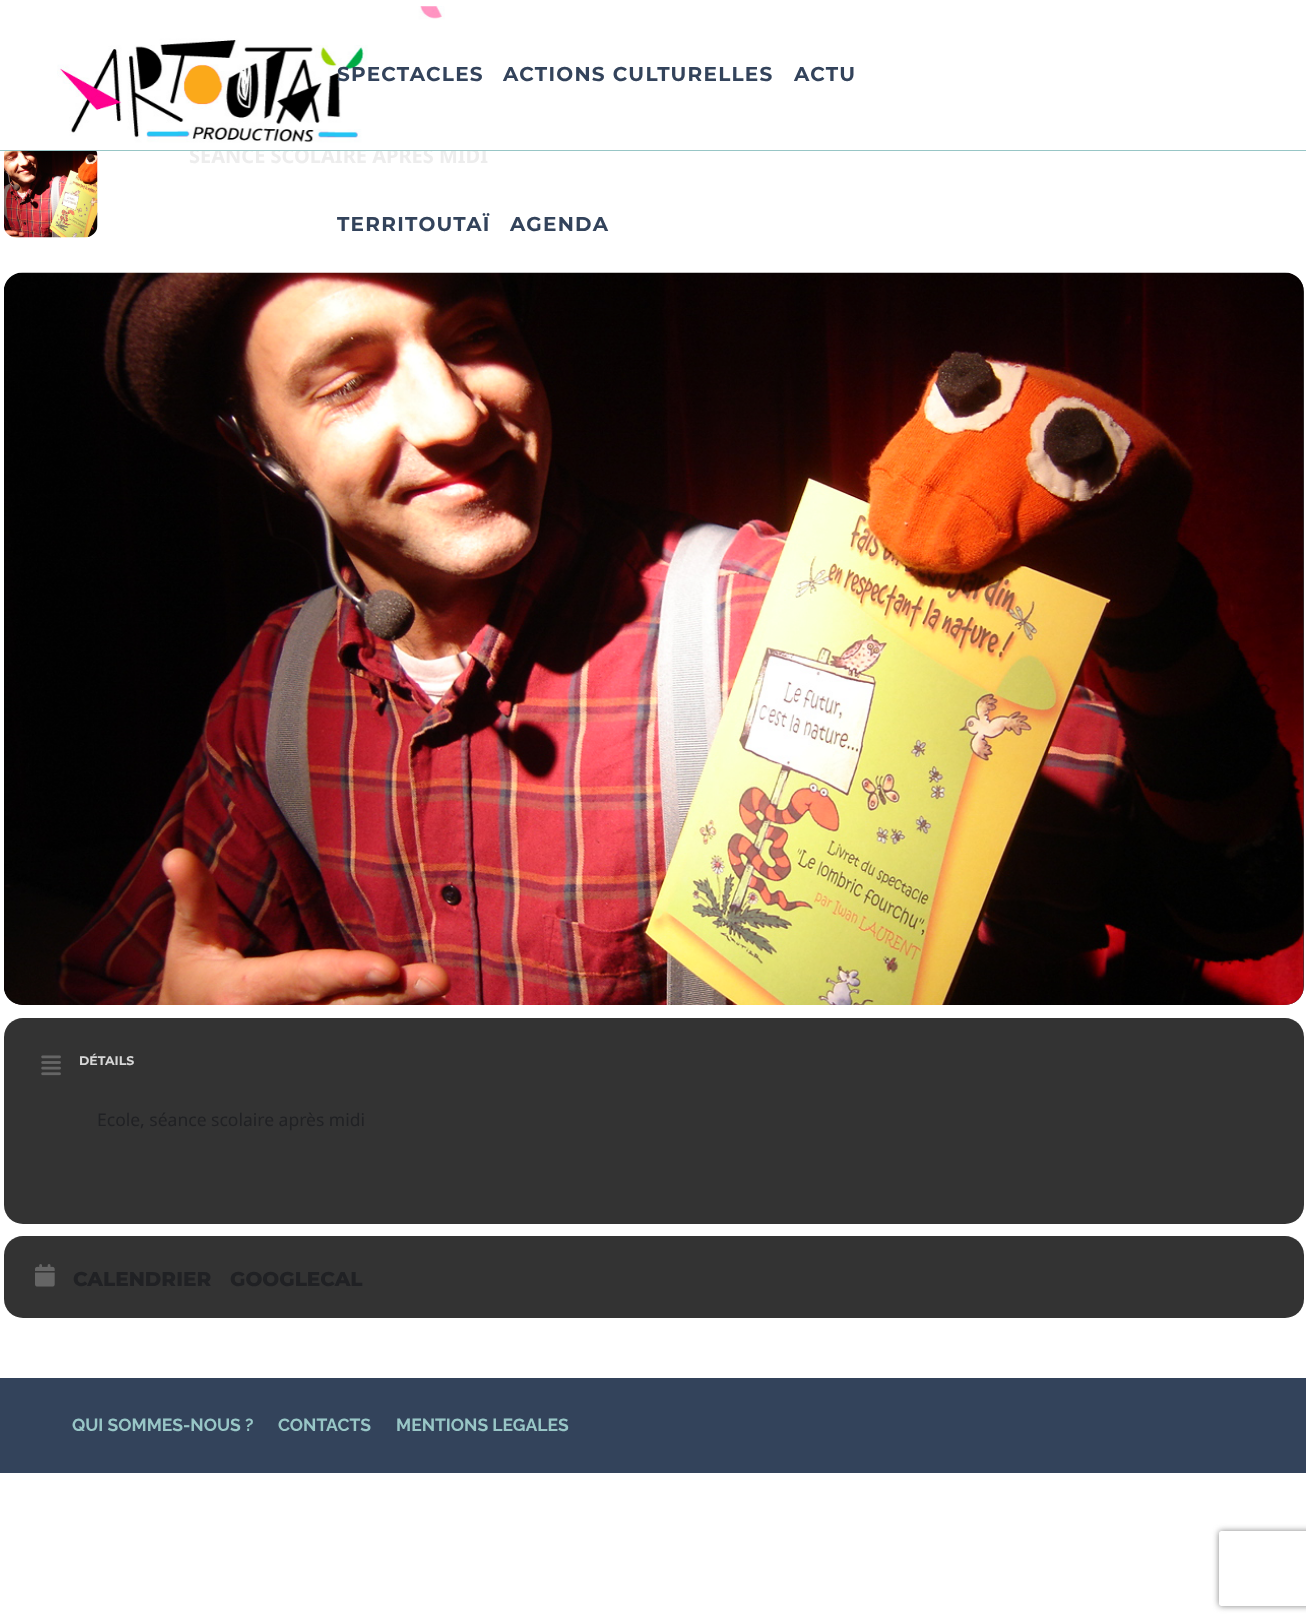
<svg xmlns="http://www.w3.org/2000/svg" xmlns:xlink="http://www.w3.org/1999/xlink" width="1306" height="1623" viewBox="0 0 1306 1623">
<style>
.cls-1{font:bold 20px Noto Sans;fill:#ededed}
.cls-2{font:bold 12.5px Montserrat;fill:#d6d6d6}
.cls-3{font:17.5px Noto Sans;fill:#202124}
.cls-4{font:800 20px Montserrat;fill:#202124}
.cls-5{font:bold 20px Montserrat;letter-spacing:1.25px;fill:#33435b}
.cls-6{font:bold 17.5px Raleway;fill:#98c6c6}
</style>
<defs>
<clipPath id="clip1"><path d="M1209 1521H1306V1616H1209ZM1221.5 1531H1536.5C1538 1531 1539 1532 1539 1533.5V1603.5C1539 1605 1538 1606 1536.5 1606H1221.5C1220 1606 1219 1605 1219 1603.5V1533.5C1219 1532 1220 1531 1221.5 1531Z" clip-rule="evenodd"/></clipPath>
</defs>
<rect width="100%" height="100%" fill="#ffffff"/>
<image xlink:href="image0.png" x="4" y="151" width="94" height="87"/>
<rect fill="#333333" x="4" y="273" width="1300" height="732" rx="19"/>
<image xlink:href="image1.png" x="4" y="272" width="1300" height="733"/>
<rect fill="#333333" x="4" y="1018" width="1300" height="206" rx="19"/>
<image xlink:href="image2.png" x="41" y="1055" width="20" height="21"/>
<rect fill="#333333" x="4" y="1236" width="1300" height="82" rx="19"/>
<image xlink:href="image3.png" x="35" y="1264" width="20" height="23"/>
<image xlink:href="image4.png" x="57" y="6" width="388" height="137"/>
<rect fill="#33435b" x="0" y="1378" width="1306" height="95"/>
<g clip-path="url(#clip1)">
<rect fill="#808080" filter="blur(3px)" x="1219" y="1531" width="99" height="75" rx="2.5"/>
</g>
<text class="cls-1" x="189" y="163">SÉANCE SCOLAIRE APRÈS MIDI</text>
<text class="cls-2" x="79" y="1065">DÉTAILS</text>
<text class="cls-3" x="97" y="1126">Ecole, séance scolaire après midi</text>
<text class="cls-4" x="73" y="1286">CALENDRIER</text>
<text class="cls-4" x="230" y="1286">GOOGLECAL</text>
<rect fill="#ffffff" x="191" y="144" width="297" height="6"/>
<rect fill="#98c6c6" x="0" y="150" width="1306" height="1"/>
<text class="cls-5" x="337" y="81">SPECTACLES</text>
<text class="cls-5" x="503" y="81">ACTIONS CULTURELLES</text>
<text class="cls-5" x="794" y="81">ACTU</text>
<text class="cls-5" x="337" y="231">TERRITOUTAÏ</text>
<text class="cls-5" x="510" y="231">AGENDA</text>
<text class="cls-6" x="72" y="1431">QUI SOMMES-NOUS ?</text>
<text class="cls-6" x="278" y="1431">CONTACTS</text>
<text class="cls-6" x="396" y="1431">MENTIONS LEGALES</text>
</svg>
